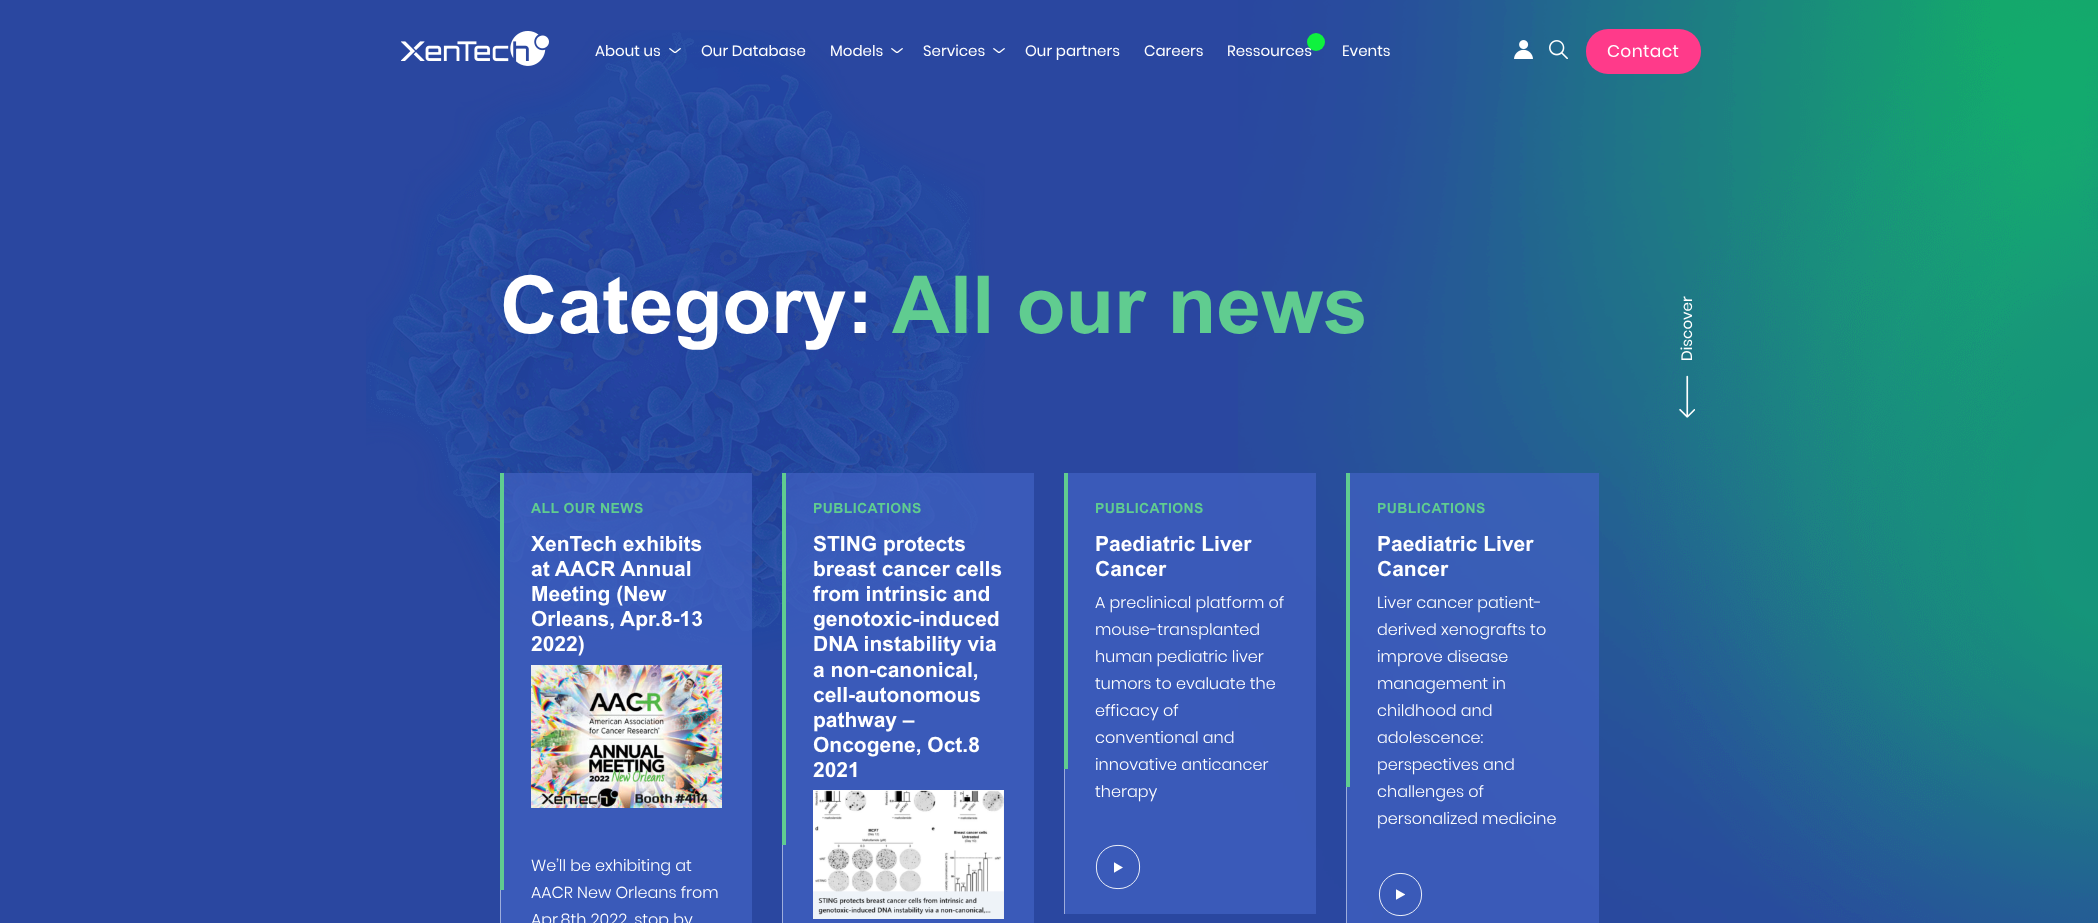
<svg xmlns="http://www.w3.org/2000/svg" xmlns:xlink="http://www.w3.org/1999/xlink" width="2098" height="923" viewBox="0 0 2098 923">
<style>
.cls-1{font:15px Poppins;fill:#ffffff}
.cls-2{font:17px Poppins;letter-spacing:0.4px;fill:#ffffff}
.cls-3{font:bold 80px Arial;fill:#ffffff}
.cls-4{font:bold 80px Arial;fill:#60cc90}
.cls-5{font:bold 14px Arial;letter-spacing:0.4px;fill:#60cc90}
.cls-6{font:bold 21px Arial;fill:#ffffff}
.cls-7{font:300 16px Poppins;fill:#ffffff}
</style>
<defs>
<clipPath id="clip1"><rect x="1114" y="862" width="9" height="11"/></clipPath>
<clipPath id="clip2"><rect x="1396" y="889" width="9" height="11"/></clipPath>
</defs>
<rect width="100%" height="100%" fill="#2a47a0"/>
<image xlink:href="image0.png" x="366" y="30" width="619" height="620"/>
<image xlink:href="image1.png" x="1238" y="0" width="860" height="923"/>
<image xlink:href="image2.png" x="401" y="31" width="148" height="35"/>
<image xlink:href="image3.png" x="669" y="48" width="12" height="5"/>
<image xlink:href="image4.png" x="891" y="48" width="12" height="5"/>
<image xlink:href="image4.png" x="993" y="48" width="12" height="5"/>
<circle fill="#0ef23e" cx="1316" cy="42" r="9"/>
<image xlink:href="image5.png" x="1514" y="40" width="19" height="19"/>
<image xlink:href="image6.png" x="1549" y="40" width="19" height="19"/>
<rect fill="#ff3a8a" x="1586" y="29" width="115" height="45" rx="22"/>
<rect fill="#4162c3" fill-opacity="0.7" x="500" y="473" width="252" height="450"/>
<rect fill="#ffffff" fill-opacity="0.5" x="500" y="890" width="1" height="33"/>
<rect fill="#60cc90" x="500" y="473" width="4" height="417"/>
<image xlink:href="image7.png" x="531" y="665" width="191" height="143"/>
<rect fill="#4162c3" fill-opacity="0.7" x="782" y="473" width="252" height="450"/>
<rect fill="#ffffff" fill-opacity="0.5" x="782" y="845" width="1" height="78"/>
<rect fill="#60cc90" x="782" y="473" width="4" height="372"/>
<image xlink:href="image8.png" x="813" y="790" width="191" height="129"/>
<rect fill="#4162c3" fill-opacity="0.7" x="1065" y="473" width="251" height="441"/>
<rect fill="#9dacdc" x="1064" y="769" width="1" height="145"/>
<rect fill="#60cc90" x="1064" y="473" width="4" height="296"/>
<rect fill="none" stroke="#ffffff" stroke-width="0.9" x="1096.45" y="845.45" width="43.1" height="43.1" rx="20.55"/>
<g clip-path="url(#clip1)">
<path fill="#ffffff" d="M1123 867.5L1113.5 862V873Z"/>
</g>
<rect fill="#4162c3" fill-opacity="0.7" x="1346" y="473" width="253" height="450"/>
<rect fill="#ffffff" fill-opacity="0.5" x="1346" y="787" width="1" height="136"/>
<rect fill="#60cc90" x="1346" y="473" width="4" height="314"/>
<rect fill="none" stroke="#ffffff" stroke-width="0.9" x="1379.45" y="873.45" width="42.1" height="42.1" rx="20.55"/>
<g clip-path="url(#clip2)">
<path fill="#ffffff" d="M1405.5 894.5L1395.5 889V900Z"/>
</g>
<image xlink:href="image9.png" x="1679" y="375" width="16" height="43"/>
<text class="cls-1" x="595" y="56">About us</text>
<text class="cls-1" x="701" y="56">Our Database</text>
<text class="cls-1" x="830" y="56">Models</text>
<text class="cls-1" x="923" y="56">Services</text>
<text class="cls-1" x="1025" y="56">Our partners</text>
<text class="cls-1" x="1144" y="56">Careers</text>
<text class="cls-1" x="1227" y="56">Ressources</text>
<text class="cls-1" x="1342" y="56">Events</text>
<text class="cls-2" x="1607" y="57">Contact</text>
<text class="cls-3" x="500" y="333">Category:</text>
<text class="cls-4" x="892" y="333">All our news</text>
<text class="cls-5" x="531" y="513">ALL OUR NEWS</text>
<text class="cls-6"><tspan x="531" y="551">XenTech exhibits</tspan><tspan x="531" y="576">at AACR Annual</tspan><tspan x="531" y="601">Meeting (New</tspan><tspan x="531" y="626">Orleans, Apr.8-13</tspan><tspan x="531" y="651">2022)</tspan></text>
<text class="cls-7"><tspan x="531" y="871">We’ll be exhibiting at</tspan><tspan x="531" y="898">AACR New Orleans from</tspan><tspan x="531" y="925">Apr.8th 2022, stop by</tspan></text>
<text class="cls-5" x="813" y="513">PUBLICATIONS</text>
<text class="cls-6"><tspan x="813" y="551">STING protects</tspan><tspan x="813" y="576">breast cancer cells</tspan><tspan x="813" y="601">from intrinsic and</tspan><tspan x="813" y="626">genotoxic-induced</tspan><tspan x="813" y="651">DNA instability via</tspan><tspan x="813" y="677">a non-canonical,</tspan><tspan x="813" y="702">cell-autonomous</tspan><tspan x="813" y="727">pathway –</tspan><tspan x="813" y="752">Oncogene, Oct.8</tspan><tspan x="813" y="777">2021</tspan></text>
<text class="cls-5" x="1095" y="513">PUBLICATIONS</text>
<text class="cls-6"><tspan x="1095" y="551">Paediatric Liver</tspan><tspan x="1095" y="576">Cancer</tspan></text>
<text class="cls-7"><tspan x="1095" y="608">A preclinical platform of</tspan><tspan x="1095" y="635">mouse-transplanted</tspan><tspan x="1095" y="662">human pediatric liver</tspan><tspan x="1095" y="689">tumors to evaluate the</tspan><tspan x="1095" y="716">efficacy of</tspan><tspan x="1095" y="743">conventional and</tspan><tspan x="1095" y="770">innovative anticancer</tspan><tspan x="1095" y="797">therapy</tspan></text>
<text class="cls-5" x="1377" y="513">PUBLICATIONS</text>
<text class="cls-6"><tspan x="1377" y="551">Paediatric Liver</tspan><tspan x="1377" y="576">Cancer</tspan></text>
<text class="cls-7"><tspan x="1377" y="608">Liver cancer patient-</tspan><tspan x="1377" y="635">derived xenografts to</tspan><tspan x="1377" y="662">improve disease</tspan><tspan x="1377" y="689">management in</tspan><tspan x="1377" y="716">childhood and</tspan><tspan x="1377" y="743">adolescence:</tspan><tspan x="1377" y="770">perspectives and</tspan><tspan x="1377" y="797">challenges of</tspan><tspan x="1377" y="824">personalized medicine</tspan></text>
<text class="cls-1" x="1692" y="361" transform="rotate(-90 1692 361)">Discover</text>
</svg>
